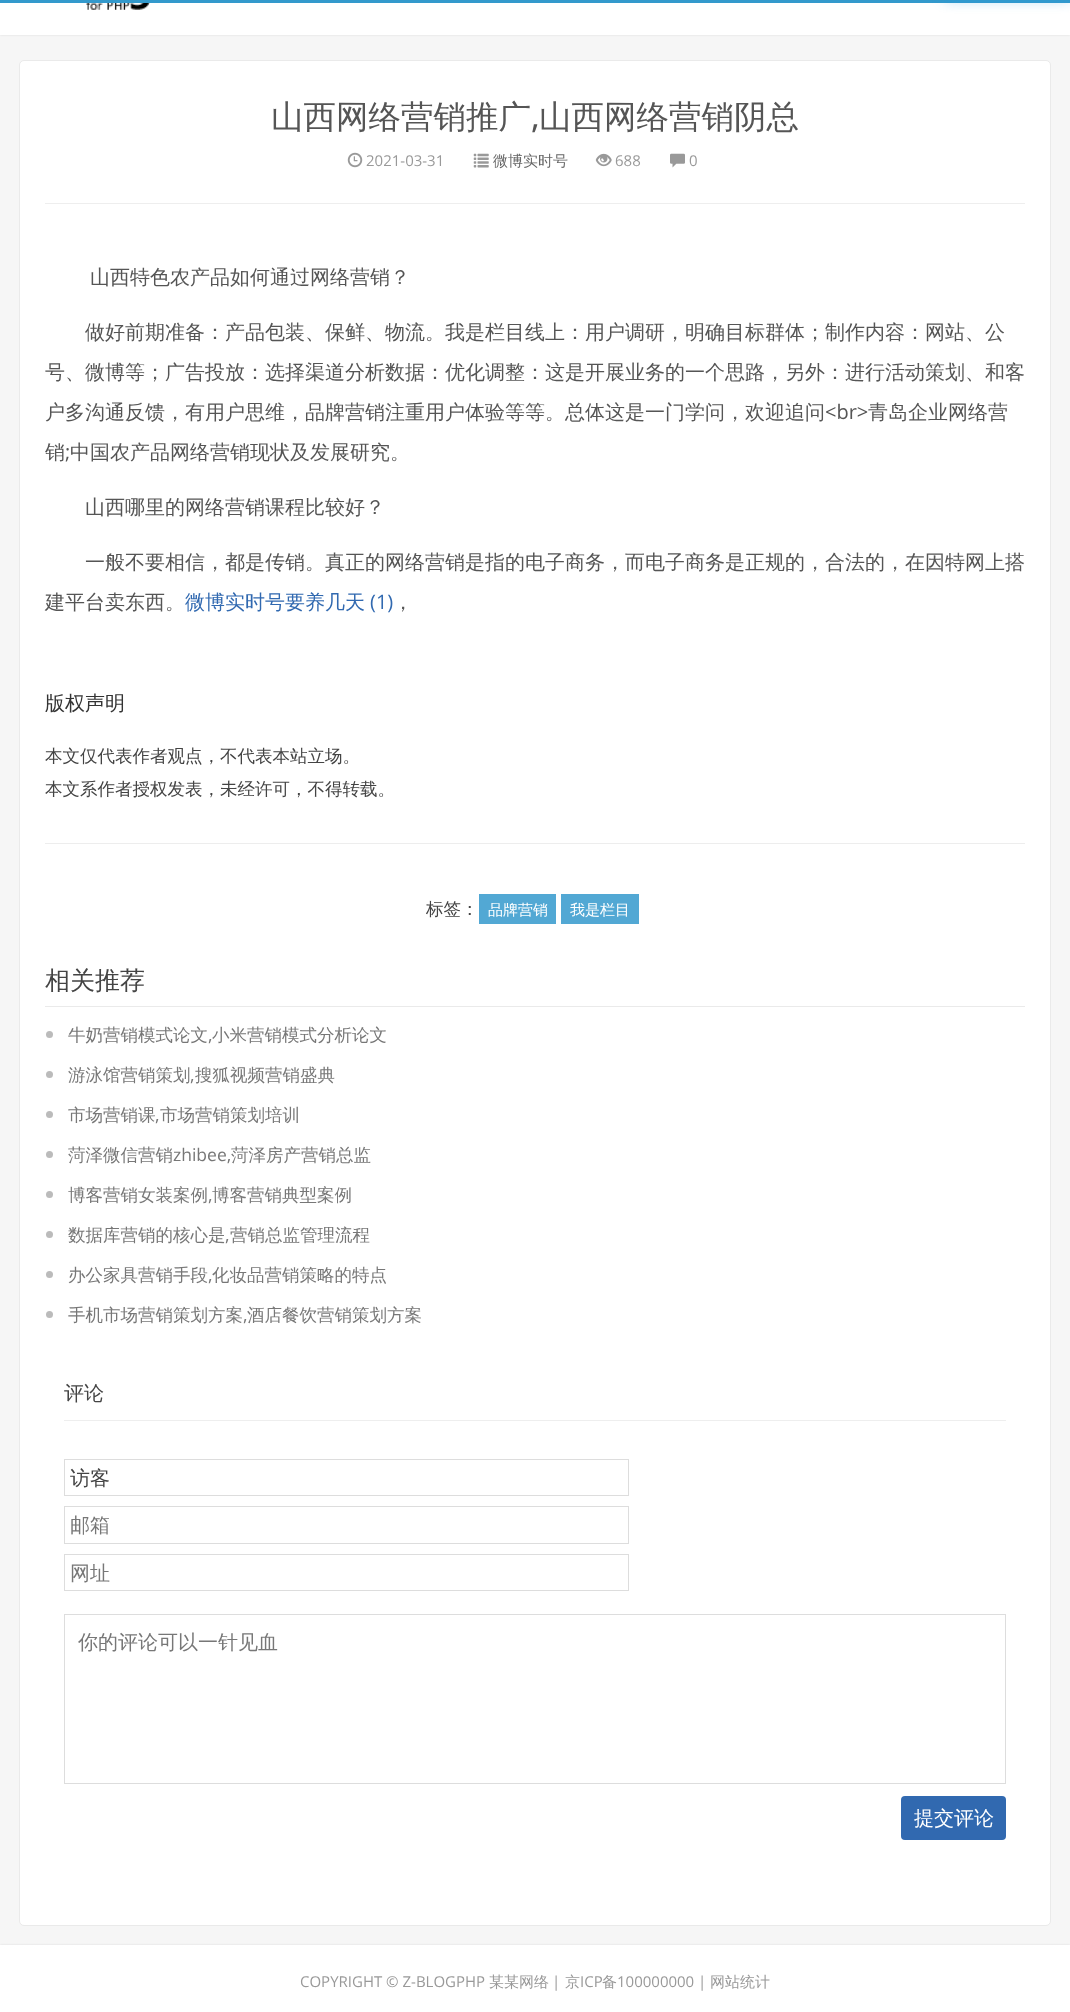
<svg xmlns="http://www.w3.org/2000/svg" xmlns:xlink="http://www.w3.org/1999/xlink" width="1070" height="2012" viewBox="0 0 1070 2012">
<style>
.cls-1{font:500 32.5px WenQuanYi Zen Hei;fill:#555555}
.cls-2{font:500 32.5px Open Sans;fill:#555555}
.cls-3{font:15px Open Sans;fill:#999999}
.cls-4{font:500 15px WenQuanYi Zen Hei;fill:#666666}
.cls-5{font:500 20px WenQuanYi Zen Hei;fill:#555555}
.cls-6{font:20px Open Sans;fill:#555555}
.cls-7{font:500 20px WenQuanYi Zen Hei;fill:#3169b0}
.cls-8{font:20px Open Sans;fill:#3169b0}
.cls-9{font:500 20px WenQuanYi Zen Hei;fill:#333333}
.cls-10{font:500 17.5px WenQuanYi Zen Hei;fill:#444444}
.cls-11{font:500 15px WenQuanYi Zen Hei;fill:#ffffff}
.cls-12{font:500 25px WenQuanYi Zen Hei;fill:#444444}
.cls-13{font:500 17.5px WenQuanYi Zen Hei;fill:#777777}
.cls-14{font:17.5px Open Sans;fill:#777777}
.cls-15{font:500 20px WenQuanYi Zen Hei;fill:#444444}
.cls-16{font:500 20px WenQuanYi Zen Hei;fill:#777777}
.cls-17{font:500 20px WenQuanYi Zen Hei;fill:#ffffff}
.cls-18{font:500 15px WenQuanYi Zen Hei;fill:#999999}
</style>
<rect width="100%" height="100%" fill="#f6f6f6"/>
<rect fill="#000000" fill-opacity="0.1" filter="blur(1px)" x="0" y="-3" width="1070" height="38"/>
<rect fill="#ffffff" x="0" y="3" width="1070" height="32"/>
<image xlink:href="image0.png" x="86" y="3" width="64" height="7"/>
<rect fill="#3399cc" x="0" y="0" width="1070" height="3"/>
<rect fill="#2299dd" filter="blur(6.5px)" x="945" y="-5" width="125" height="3"/>
<rect fill="#ffffff" stroke="#eaeaea" x="19.5" y="60.5" width="1031" height="1865" rx="4.5"/>
<rect fill="#eeeeee" x="45" y="203" width="980" height="1"/>
<image xlink:href="image1.png" x="347" y="152" width="16" height="16"/>
<image xlink:href="image2.png" x="473" y="153" width="16" height="15"/>
<image xlink:href="image3.png" x="595" y="153" width="17" height="14"/>
<image xlink:href="image4.png" x="670" y="153" width="15" height="15"/>
<rect fill="#ededed" x="45" y="843" width="980" height="1"/>
<rect fill="#52a8d4" x="479" y="894" width="77" height="30"/>
<rect fill="#52a8d4" x="561" y="894" width="78" height="30"/>
<rect fill="#eaeaea" x="45" y="1006" width="980" height="1"/>
<circle fill="#bbbbbb" cx="49.5" cy="1034.5" r="3.5"/>
<circle fill="#bbbbbb" cx="49.5" cy="1074.5" r="3.5"/>
<circle fill="#bbbbbb" cx="49.5" cy="1114.5" r="3.5"/>
<circle fill="#bbbbbb" cx="49.5" cy="1154.5" r="3.5"/>
<circle fill="#bbbbbb" cx="49.5" cy="1194.5" r="3.5"/>
<circle fill="#bbbbbb" cx="49.5" cy="1234.5" r="3.5"/>
<circle fill="#bbbbbb" cx="49.5" cy="1274.5" r="3.5"/>
<circle fill="#bbbbbb" cx="49.5" cy="1314.5" r="3.5"/>
<rect fill="#eeeeee" x="64" y="1420" width="942" height="1"/>
<rect fill="none" stroke="#dddddd" x="64.5" y="1459.5" width="564" height="36"/>
<rect fill="none" stroke="#dddddd" x="64.5" y="1506.5" width="564" height="37"/>
<rect fill="none" stroke="#dddddd" x="64.5" y="1554.5" width="564" height="36"/>
<rect fill="none" stroke="#dddddd" x="64.5" y="1614.5" width="941" height="169"/>
<rect fill="#3169b0" x="901" y="1796" width="105" height="44" rx="4"/>
<rect fill="#000000" fill-opacity="0.1" filter="blur(1px)" x="0" y="1945" width="1070" height="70"/>
<rect fill="#ffffff" x="0" y="1945" width="1070" height="67"/>
<text class="cls-1" x="271" y="128">山西网络营销推广</text>
<text class="cls-2" x="531" y="128">,</text>
<text class="cls-1" x="539" y="128">山西网络营销阴总</text>
<text class="cls-3" x="366" y="166">2021-03-31</text>
<text class="cls-4" x="493" y="166">微博实时号</text>
<text class="cls-3" x="615" y="166">688</text>
<text class="cls-3" x="689" y="166">0</text>
<text class="cls-5" x="90" y="284">山西特色农产品如何通过网络营销？</text>
<text class="cls-5" x="85" y="339">做好前期准备：产品包装、保鲜、物流。我是栏目线上：用户调研，明确目标群体；制作内容：网站、公</text>
<text class="cls-5" x="45" y="379">号、微博等；广告投放：选择渠道分析数据：优化调整：这是开展业务的一个思路，另外：进行活动策划、和客</text>
<text class="cls-5" x="45" y="419">户多沟通反馈，有用户思维，品牌营销注重用户体验等等。总体这是一门学问，欢迎追问</text>
<text class="cls-6" x="825" y="419">&lt;br&gt;</text>
<text class="cls-5" x="868" y="419">青岛企业网络营</text>
<text class="cls-5" x="45" y="459">销</text>
<text class="cls-6" x="65" y="459">;</text>
<text class="cls-5" x="70" y="459">中国农产品网络营销现状及发展研究。</text>
<text class="cls-5" x="85" y="514">山西哪里的网络营销课程比较好？</text>
<text class="cls-5" x="85" y="569">一般不要相信，都是传销。真正的网络营销是指的电子商务，而电子商务是正规的，合法的，在因特网上搭</text>
<text class="cls-5" x="45" y="609">建平台卖东西。</text>
<text class="cls-7" x="185" y="609">微博实时号要养几天</text>
<text class="cls-8" x="370" y="609">(1)</text>
<text class="cls-5" x="393" y="609">，</text>
<text class="cls-9" x="45" y="710">版权声明</text>
<text class="cls-10"><tspan x="45" y="762">本文仅代表作者观点，不代表本站立场。</tspan><tspan x="45" y="795">本文系作者授权发表，未经许可，不得转载。</tspan></text>
<text class="cls-10" x="426" y="915">标签：</text>
<text class="cls-11" x="488" y="915">品牌营销</text>
<text class="cls-11" x="570" y="915">我是栏目</text>
<text class="cls-12" x="45" y="989">相关推荐</text>
<text class="cls-13" x="68" y="1041">牛奶营销模式论文</text>
<text class="cls-13" x="212" y="1041">小米营销模式分析论文</text>
<text class="cls-14" x="208" y="1041">,</text>
<text class="cls-13" x="68" y="1081">游泳馆营销策划</text>
<text class="cls-13" x="195" y="1081">搜狐视频营销盛典</text>
<text class="cls-14" x="190" y="1081">,</text>
<text class="cls-13" x="68" y="1121">市场营销课</text>
<text class="cls-13" x="160" y="1121">市场营销策划培训</text>
<text class="cls-14" x="155" y="1121">,</text>
<text class="cls-13" x="68" y="1161">菏泽微信营销</text>
<text class="cls-14" x="173" y="1161">zhibee,</text>
<text class="cls-13" x="231" y="1161">菏泽房产营销总监</text>
<text class="cls-13" x="68" y="1201">博客营销女装案例</text>
<text class="cls-13" x="212" y="1201">博客营销典型案例</text>
<text class="cls-14" x="208" y="1201">,</text>
<text class="cls-13" x="68" y="1241">数据库营销的核心是</text>
<text class="cls-13" x="230" y="1241">营销总监管理流程</text>
<text class="cls-14" x="225" y="1241">,</text>
<text class="cls-13" x="68" y="1281">办公家具营销手段</text>
<text class="cls-13" x="212" y="1281">化妆品营销策略的特点</text>
<text class="cls-14" x="208" y="1281">,</text>
<text class="cls-13" x="68" y="1321">手机市场营销策划方案</text>
<text class="cls-13" x="247" y="1321">酒店餐饮营销策划方案</text>
<text class="cls-14" x="243" y="1321">,</text>
<text class="cls-15" x="64" y="1400">评论</text>
<text class="cls-15" x="70" y="1485">访客</text>
<text class="cls-16" x="70" y="1532">邮箱</text>
<text class="cls-16" x="70" y="1580">网址</text>
<text class="cls-16" x="78" y="1649">你的评论可以一针见血</text>
<text class="cls-17" x="914" y="1825">提交评论</text>
<text class="cls-3" x="300" y="1987">COPYRIGHT © Z-BLOGPHP</text>
<text class="cls-18" x="489" y="1987">某某网络</text>
<text class="cls-3" x="552" y="1987">|</text>
<text class="cls-18" x="565" y="1987">京</text>
<text class="cls-3" x="580" y="1987">ICP</text>
<text class="cls-18" x="602" y="1987">备</text>
<text class="cls-3" x="617" y="1987">100000000 |</text>
<text class="cls-18" x="710" y="1987">网站统计</text>
</svg>
